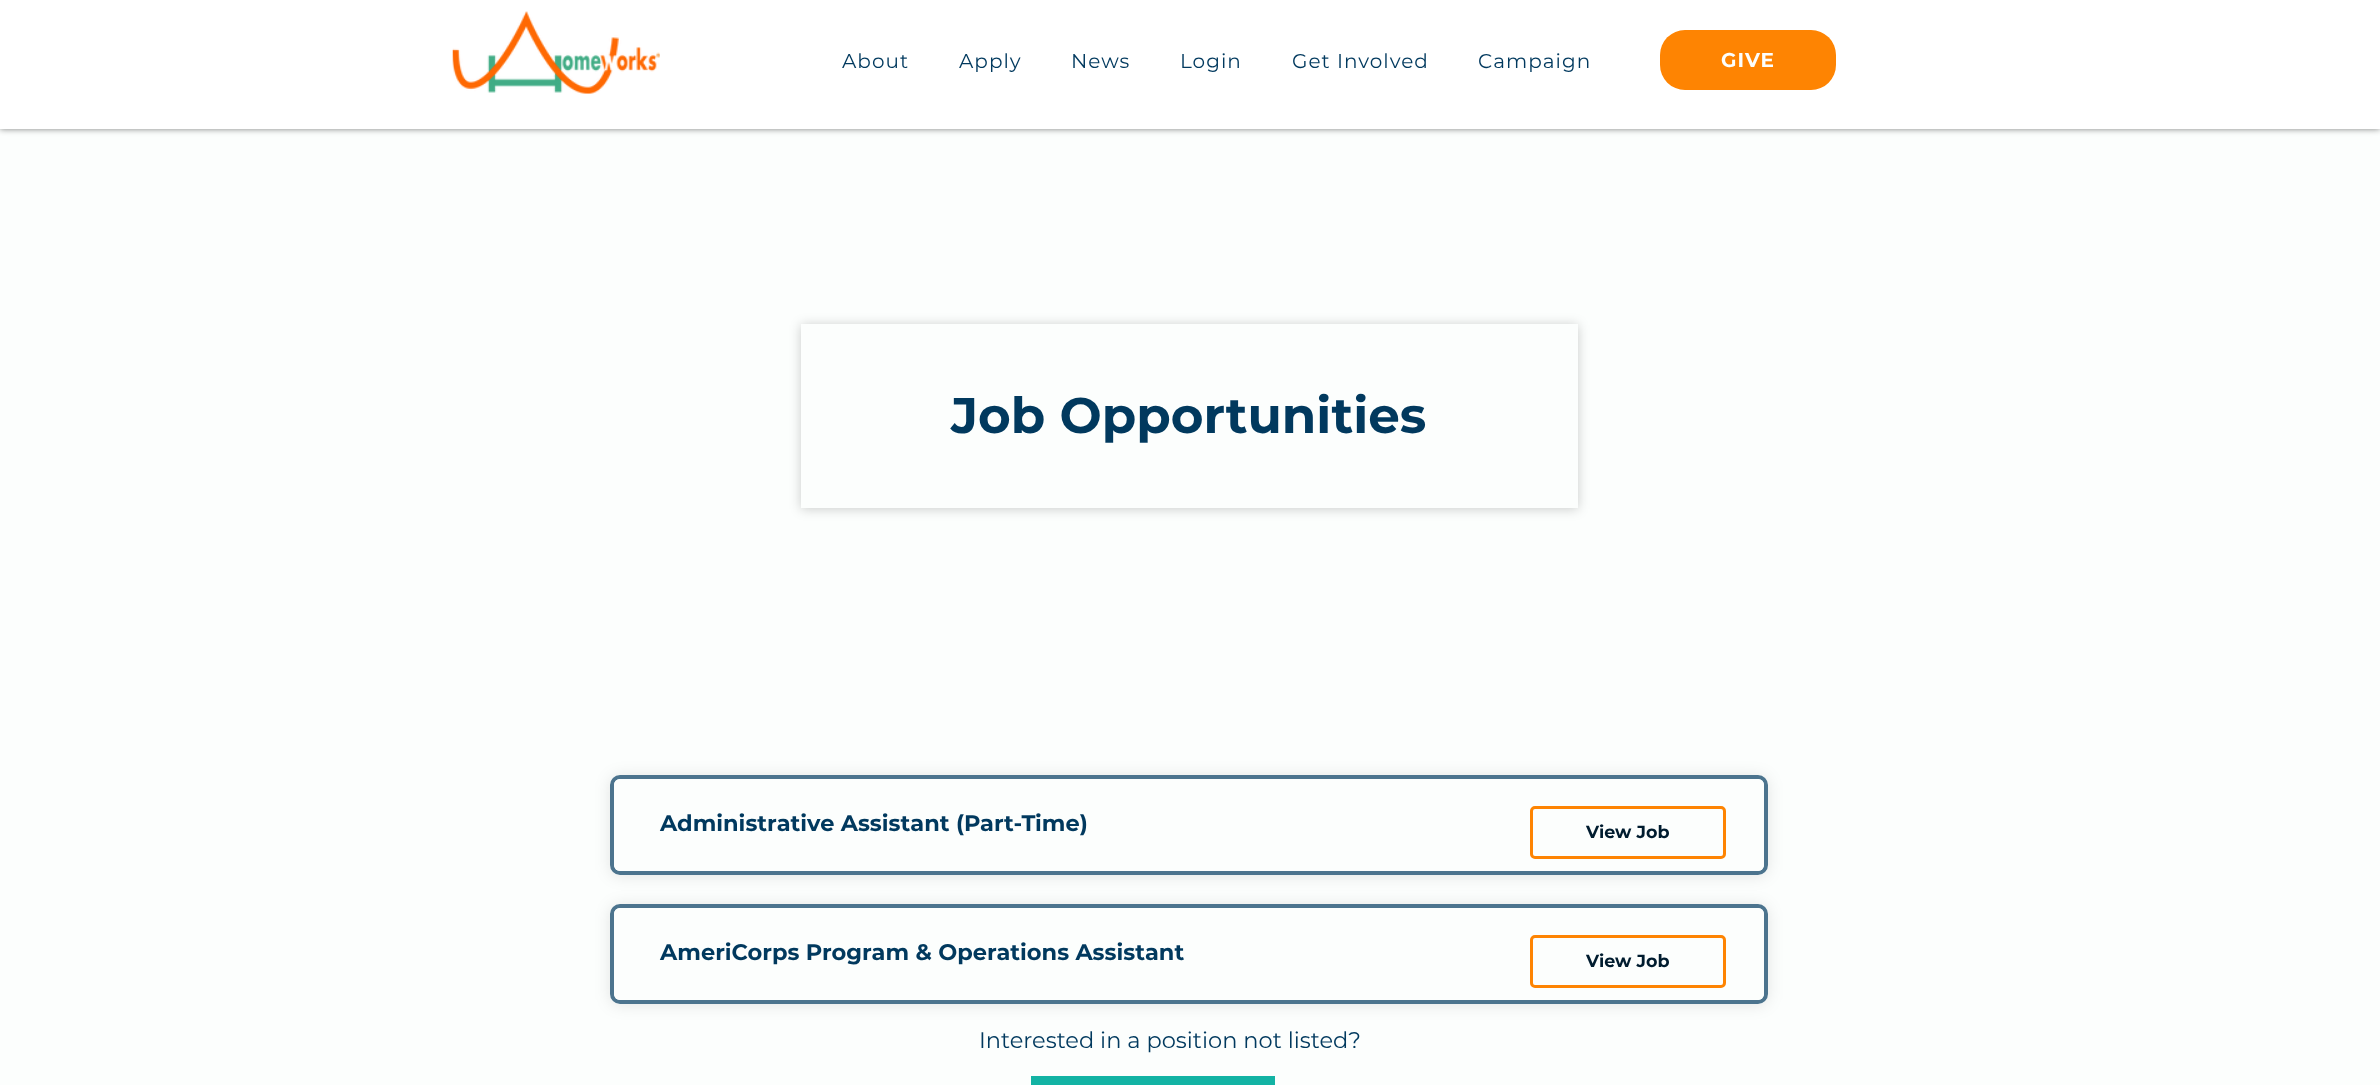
<svg xmlns="http://www.w3.org/2000/svg" xmlns:xlink="http://www.w3.org/1999/xlink" width="2380" height="1085" viewBox="0 0 2380 1085">
<style>
.cls-1{font:20px Montserrat;letter-spacing:1px;fill:#01395e}
.cls-2{font:bold 20px Montserrat;letter-spacing:1px;fill:#fcfefd}
.cls-3{font:bold 50px Montserrat;fill:#01395e}
.cls-4{font:bold 22.5px Montserrat;fill:#01395e}
.cls-5{font:bold 17.5px Montserrat;fill:#001c2f}
.cls-6{font:22.5px Montserrat;fill:#01395e}
</style>
<defs>
<clipPath id="clip1"><path d="M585 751H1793V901H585ZM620 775H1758C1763.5 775 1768 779.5 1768 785V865C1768 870.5 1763.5 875 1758 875H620C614.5 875 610 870.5 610 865V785C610 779.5 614.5 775 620 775Z" clip-rule="evenodd"/></clipPath>
<clipPath id="clip2"><path d="M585 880H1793V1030H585ZM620 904H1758C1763.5 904 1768 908.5 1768 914V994C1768 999.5 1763.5 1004 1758 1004H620C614.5 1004 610 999.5 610 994V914C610 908.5 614.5 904 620 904Z" clip-rule="evenodd"/></clipPath>
</defs>
<rect width="100%" height="100%" fill="#fcfefd"/>
<rect fill="#000000" fill-opacity="0.5" filter="blur(3px)" x="0" y="0" width="2380" height="129"/>
<rect fill="#ffffff" x="0" y="0" width="2380" height="129"/>
<image xlink:href="image0.png" x="452" y="11" width="208" height="83"/>
<rect fill="#fe8402" x="1660" y="30" width="176" height="60" rx="25"/>
<rect fill="#000000" fill-opacity="0.2" filter="blur(6px)" x="801" y="325" width="777" height="184"/>
<rect fill="#fcfefd" x="801" y="324" width="777" height="184"/>
<g clip-path="url(#clip1)">
<rect fill="#000000" fill-opacity="0.1" filter="blur(8px)" x="610" y="776" width="1158" height="100" rx="10"/>
</g>
<rect fill="none" stroke="#01395e" stroke-opacity="0.7" stroke-width="4" x="612" y="777" width="1154" height="96" rx="8"/>
<rect fill="#fcfefd" x="614" y="779" width="1150" height="92" rx="6"/>
<rect fill="none" stroke="#fe8402" stroke-width="3" x="1531.5" y="807.5" width="193" height="50" rx="3.5"/>
<g clip-path="url(#clip2)">
<rect fill="#000000" fill-opacity="0.1" filter="blur(8px)" x="610" y="905" width="1158" height="100" rx="10"/>
</g>
<rect fill="none" stroke="#01395e" stroke-opacity="0.7" stroke-width="4" x="612" y="906" width="1154" height="96" rx="8"/>
<rect fill="#fcfefd" x="614" y="908" width="1150" height="92" rx="6"/>
<rect fill="none" stroke="#fe8402" stroke-width="3" x="1531.5" y="936.5" width="193" height="50" rx="3.5"/>
<rect fill="#13b3a4" x="1031" y="1076" width="244" height="9"/>
<text class="cls-1" x="842" y="68">About</text>
<text class="cls-1" x="959" y="68">Apply</text>
<text class="cls-1" x="1071" y="68">News</text>
<text class="cls-1" x="1180" y="68">Login</text>
<text class="cls-1" x="1292" y="68">Get Involved</text>
<text class="cls-1" x="1478" y="68">Campaign</text>
<text class="cls-2" x="1721" y="67">GIVE</text>
<text class="cls-3" x="951" y="433">Job Opportunities</text>
<text class="cls-4" x="660" y="831">Administrative Assistant (Part-Time)</text>
<text class="cls-5" x="1586" y="838">View Job</text>
<text class="cls-4" x="660" y="960">AmeriCorps Program &amp; Operations Assistant</text>
<text class="cls-5" x="1586" y="967">View Job</text>
<text class="cls-6" x="979" y="1048">Interested in a position not listed?</text>
</svg>
